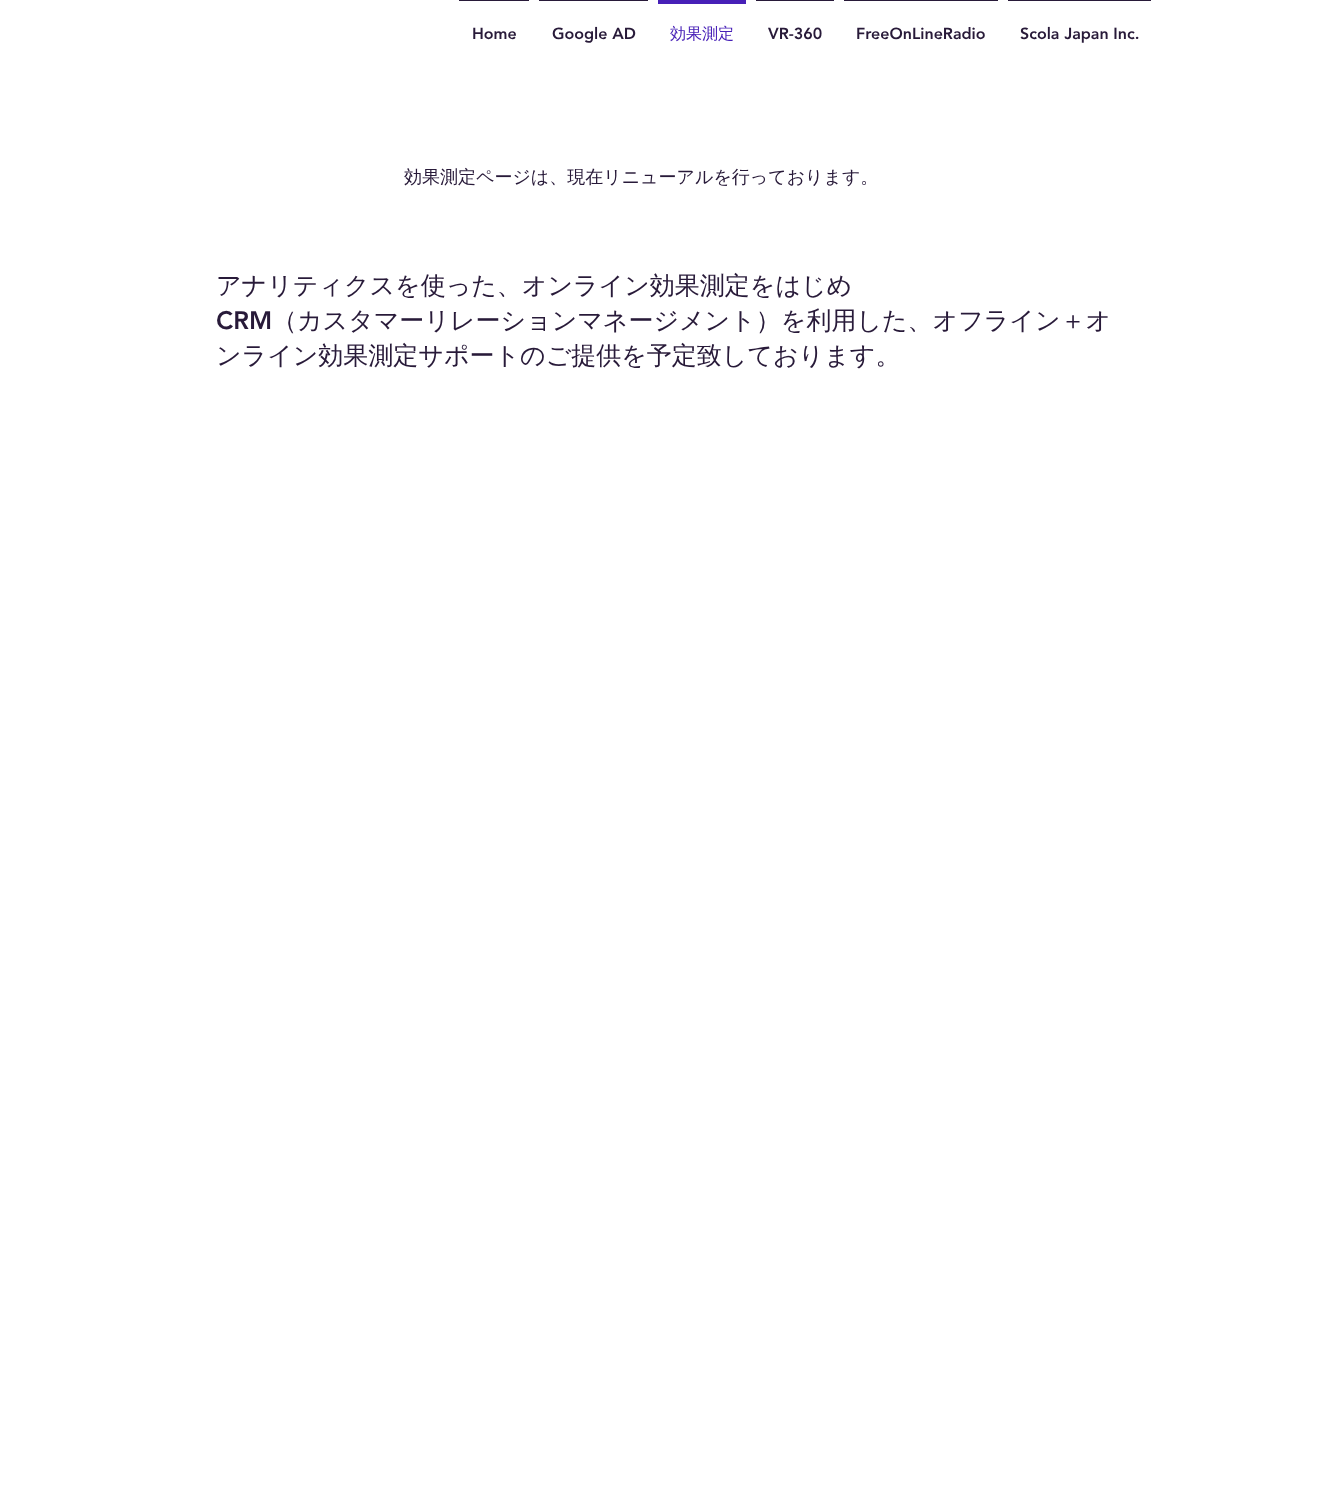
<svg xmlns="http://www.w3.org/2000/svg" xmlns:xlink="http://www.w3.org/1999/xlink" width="1338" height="1512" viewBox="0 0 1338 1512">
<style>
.cls-1{font:900 16px 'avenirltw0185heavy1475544';fill:#281a39}
.cls-2{font:500 16px WenQuanYi Zen Hei;fill:#4720b7}
.cls-3{font:500 18px WenQuanYi Zen Hei;fill:#281a39}
.cls-4{font:500 25px WenQuanYi Zen Hei;fill:#281a39}
.cls-5{font:900 25px 'avenirltw0185heavy1475544';fill:#281a39}
</style>
<rect width="100%" height="100%" fill="#ffffff"/>
<rect fill="#281a39" x="459" y="0" width="70" height="1"/>
<rect fill="#281a39" x="539" y="0" width="109" height="1"/>
<rect fill="#4720b7" x="658" y="0" width="88" height="4"/>
<rect fill="#281a39" x="756" y="0" width="78" height="1"/>
<rect fill="#281a39" x="844" y="0" width="154" height="1"/>
<rect fill="#281a39" x="1008" y="0" width="143" height="1"/>
<text class="cls-1" x="472" y="39">Home</text>
<text class="cls-1" x="552" y="39">Google AD</text>
<text class="cls-2" x="670" y="39">効果測定</text>
<text class="cls-1" x="768" y="39">VR-360</text>
<text class="cls-1" x="856" y="39">FreeOnLineRadio</text>
<text class="cls-1" x="1020" y="39">Scola Japan Inc.</text>
<text class="cls-3" x="404" y="183">効果測定ページは、現在リニューアルを行っております。</text>
<text class="cls-4" x="216" y="294">アナリティクスを使った、オンライン効果測定をはじめ</text>
<text class="cls-5" x="216" y="329">CRM</text>
<text class="cls-4" x="272" y="329">（カスタマーリレーションマネージメント）を利用した、オフライン＋オ</text>
<text class="cls-4" x="216" y="364">ンライン効果測定サポートのご提供を予定致しております。</text>
</svg>
